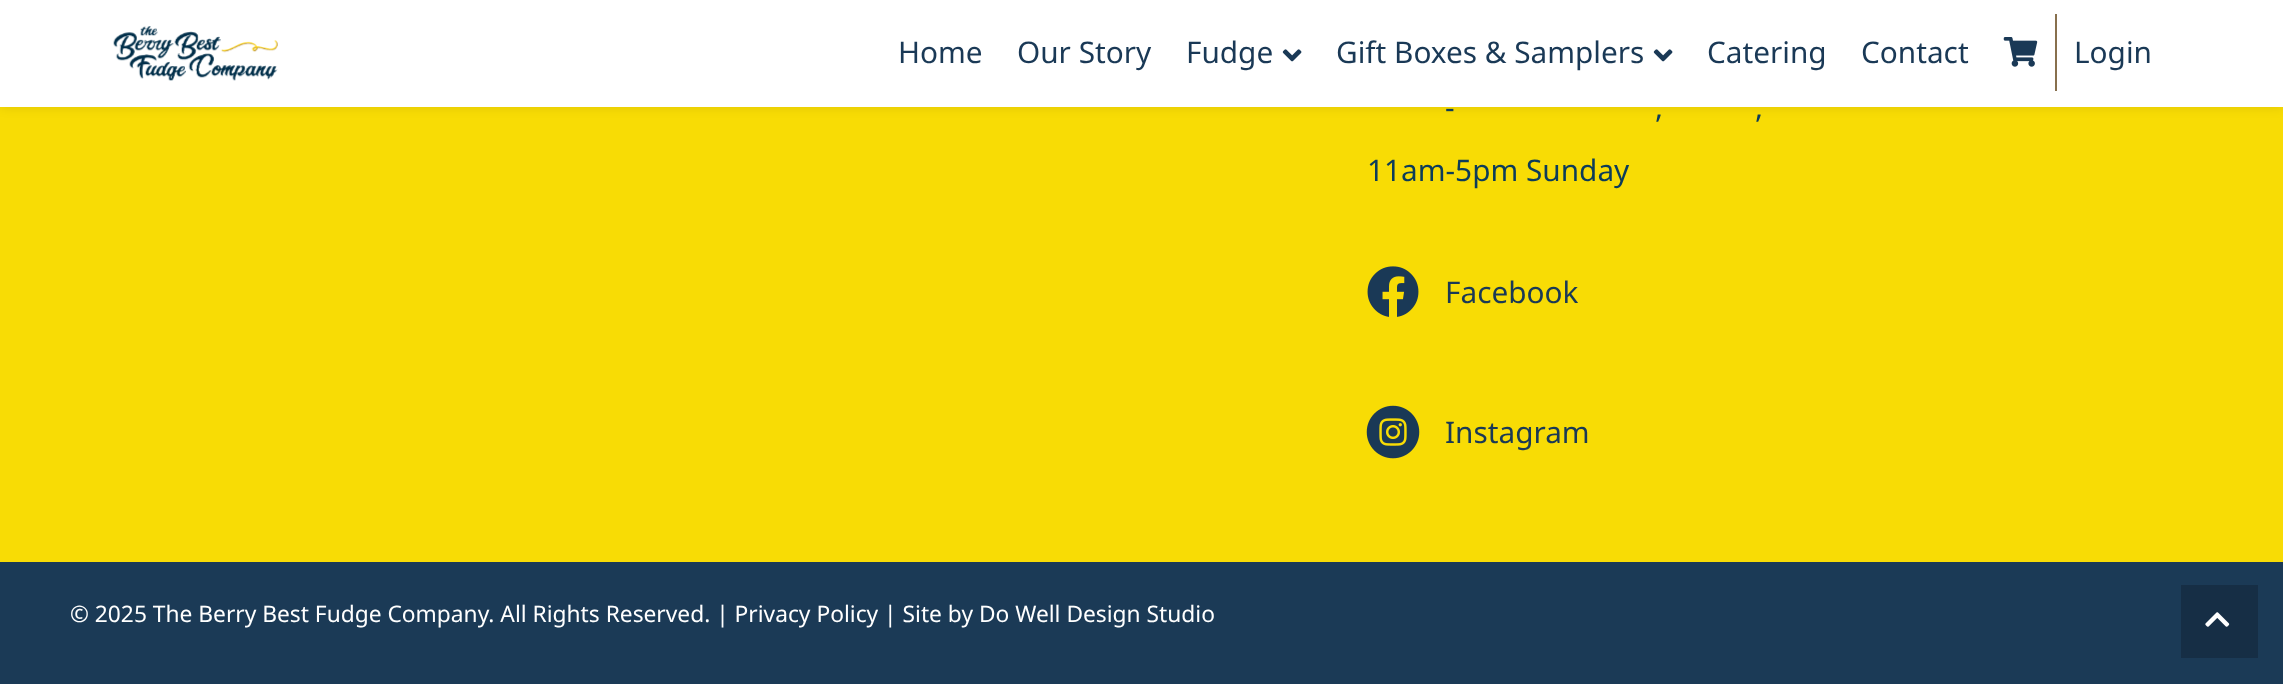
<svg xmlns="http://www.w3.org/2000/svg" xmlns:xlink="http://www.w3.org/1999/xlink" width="2283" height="684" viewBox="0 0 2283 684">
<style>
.cls-1{font:29.75px Noto Sans;fill:#1a3956}
.cls-2{font:29.75px Noto Sans;fill:#0c3c5a}
.cls-3{font:22.75px Noto Sans;fill:#ffffff}
</style>
<rect width="100%" height="100%" fill="#f8dc05"/>
<rect fill="#000000" fill-opacity="0.1" filter="blur(6px)" x="0" y="0" width="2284" height="107"/>
<rect fill="#ffffff" x="0" y="0" width="2283" height="107"/>
<image xlink:href="image0.png" x="113" y="26" width="165" height="55"/>
<image xlink:href="image1.png" x="1282" y="49" width="20" height="13"/>
<image xlink:href="image1.png" x="1653" y="49" width="20" height="13"/>
<rect fill="#88704e" x="2055" y="14" width="2" height="77"/>
<image xlink:href="image2.png" x="2003" y="37" width="35" height="30"/>
<image xlink:href="image3.png" x="1367" y="266" width="52" height="51"/>
<image xlink:href="image4.png" x="1366" y="405" width="54" height="54"/>
<rect fill="#1b3a56" x="0" y="562" width="2283" height="122"/>
<rect fill="#162e45" x="2181" y="585" width="77" height="73"/>
<image xlink:href="image5.png" x="2205" y="612" width="25" height="15"/>
<text class="cls-1" x="898" y="63">Home</text>
<text class="cls-1" x="1017" y="63">Our Story</text>
<text class="cls-1" x="1186" y="63">Fudge</text>
<text class="cls-1" x="1336" y="63">Gift Boxes &amp; Samplers</text>
<text class="cls-1" x="1707" y="63">Catering</text>
<text class="cls-1" x="1861" y="63">Contact</text>
<text class="cls-1" x="2074" y="63">Login</text>
<text class="cls-2" x="1445" y="118">-</text>
<text class="cls-2" x="1655" y="118">,</text>
<text class="cls-2" x="1755" y="118">,</text>
<text class="cls-2" x="1367" y="181">11am-5pm Sunday</text>
<text class="cls-1" x="1445" y="303">Facebook</text>
<text class="cls-1" x="1445" y="443">Instagram</text>
<text class="cls-3" x="70" y="622">© 2025 The Berry Best Fudge Company. All Rights Reserved. | Privacy Policy | Site by Do Well Design Studio</text>
</svg>
